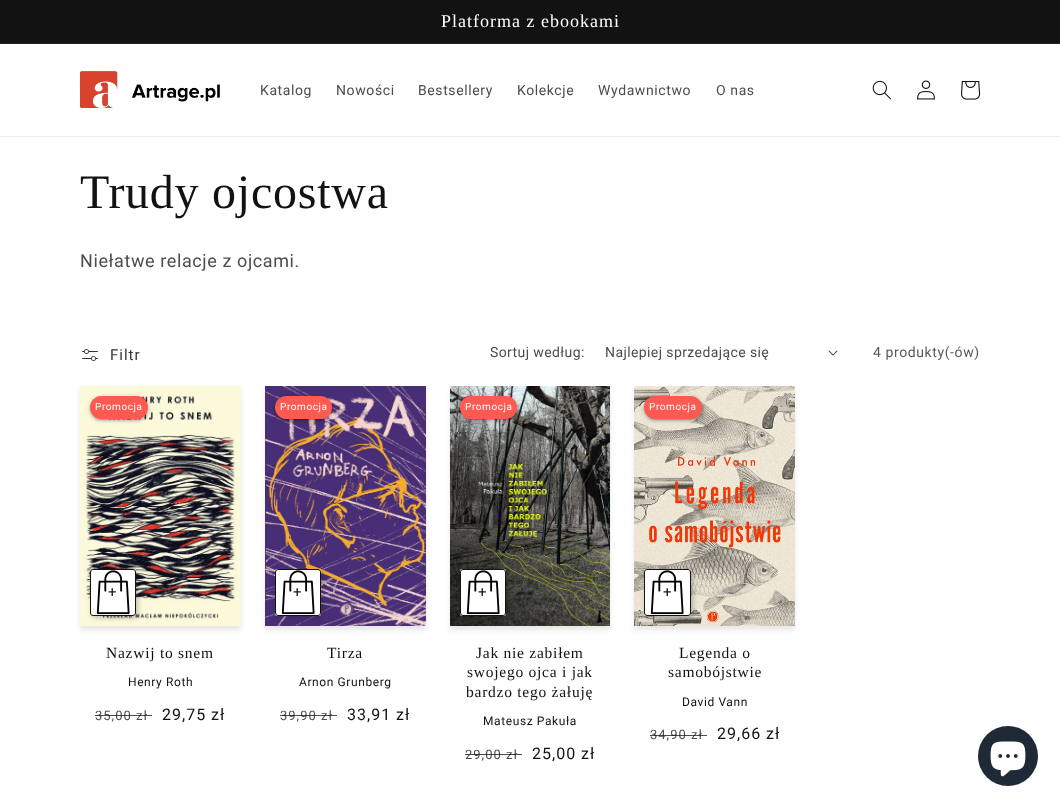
<svg xmlns="http://www.w3.org/2000/svg" xmlns:xlink="http://www.w3.org/1999/xlink" width="1060" height="807" viewBox="0 0 1060 807">
<style>
.cls-1{font:18px Liberation Serif;letter-spacing:1px;fill:#ffffff}
.cls-2{font:14px Roboto;letter-spacing:0.6px;fill:#4d4d4d}
.cls-3{font:48px Liberation Serif;letter-spacing:0.75px;fill:#121212}
.cls-4{font:18px Roboto;letter-spacing:0.6px;fill:#4d4d4d}
.cls-5{font:15px Roboto;letter-spacing:1px;fill:#363636}
.cls-6{font:14px Roboto;letter-spacing:0.4px;fill:#4d4d4d}
.cls-7{font:14px Roboto;letter-spacing:0.6px;fill:#595959}
.cls-8{font:10px Roboto;letter-spacing:0.6px;fill:#ffffff}
.cls-9{font:15px Roboto;letter-spacing:1px;fill:#121212}
.cls-10{font:15.5px Liberation Serif;letter-spacing:0.75px;fill:#121212}
.cls-11{font:12px Roboto;letter-spacing:0.6px;fill:#121212}
.cls-12{font:13px Roboto;letter-spacing:1px;fill:#4d4d4d}
.cls-13{font:16px Roboto;letter-spacing:1px;fill:#121212}
</style>
<defs>
<clipPath id="clip1"><path d="M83 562H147V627H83ZM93 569H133C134.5 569 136 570.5 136 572V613C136 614.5 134.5 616 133 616H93C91.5 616 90 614.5 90 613V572C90 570.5 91.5 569 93 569Z" clip-rule="evenodd"/></clipPath>
<clipPath id="clip2"><path d="M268 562H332V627H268ZM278 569H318C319.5 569 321 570.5 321 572V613C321 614.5 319.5 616 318 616H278C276.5 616 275 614.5 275 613V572C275 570.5 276.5 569 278 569Z" clip-rule="evenodd"/></clipPath>
<clipPath id="clip3"><path d="M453 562H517V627H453ZM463 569H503C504.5 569 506 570.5 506 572V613C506 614.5 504.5 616 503 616H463C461.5 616 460 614.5 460 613V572C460 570.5 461.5 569 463 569Z" clip-rule="evenodd"/></clipPath>
<clipPath id="clip4"><path d="M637 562H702V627H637ZM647 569H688C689.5 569 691 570.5 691 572V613C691 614.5 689.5 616 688 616H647C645.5 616 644 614.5 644 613V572C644 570.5 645.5 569 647 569Z" clip-rule="evenodd"/></clipPath>
</defs>
<rect width="100%" height="100%" fill="#ffffff"/>
<rect fill="#121212" x="0" y="0" width="1060" height="43"/>
<rect fill="#252525" x="0" y="43" width="1060" height="1"/>
<rect fill="#ececec" x="0" y="136" width="1060" height="1"/>
<image xlink:href="image0.png" x="80" y="71" width="140" height="37"/>
<image xlink:href="image1.png" x="872" y="80" width="19" height="20"/>
<image xlink:href="image2.png" x="917" y="80" width="18" height="20"/>
<image xlink:href="image3.png" x="961" y="81" width="20" height="19"/>
<image xlink:href="image4.png" x="82" y="349" width="16" height="12"/>
<image xlink:href="image5.png" x="828" y="350" width="10" height="6"/>
<rect fill="#121212" fill-opacity="0.1" filter="blur(2.5px)" x="80" y="390" width="161" height="240"/>
<image xlink:href="image6.png" x="80" y="386" width="161" height="240"/>
<rect fill="#000000" fill-opacity="0.2" filter="blur(2.5px)" x="90" y="397" width="58" height="23" rx="11.5"/>
<rect fill="#000000" fill-opacity="0.12" filter="blur(0.5px)" x="92" y="401" width="54" height="19" rx="9.5"/>
<rect fill="#000000" fill-opacity="0.14" filter="blur(1px)" x="90" y="398" width="58" height="23" rx="11.5"/>
<rect fill="#ff5a52" x="90" y="396" width="58" height="23" rx="11.5"/>
<rect fill="#ffffff" x="90" y="569" width="46" height="47" rx="2"/>
<g clip-path="url(#clip1)">
<rect fill="#121212" fill-opacity="0.25" filter="blur(2.5px)" x="92" y="571" width="46" height="47" rx="3"/>
</g>
<image xlink:href="image7.png" x="96" y="570" width="34" height="45"/>
<rect fill="none" stroke="#ffffff" x="90.5" y="569.5" width="45" height="46" rx="2.5"/>
<rect fill="none" stroke="#121212" x="90.5" y="569.5" width="45" height="46" rx="2.5"/>
<rect fill="#121212" fill-opacity="0.1" filter="blur(2.5px)" x="265" y="390" width="161" height="240"/>
<image xlink:href="image8.png" x="265" y="386" width="161" height="240"/>
<rect fill="#000000" fill-opacity="0.2" filter="blur(2.5px)" x="275" y="397" width="57" height="23" rx="11.5"/>
<rect fill="#000000" fill-opacity="0.12" filter="blur(0.5px)" x="277" y="401" width="53" height="19" rx="9.5"/>
<rect fill="#000000" fill-opacity="0.14" filter="blur(1px)" x="275" y="398" width="57" height="23" rx="11.5"/>
<rect fill="#ff5a52" x="275" y="396" width="57" height="23" rx="11.5"/>
<rect fill="#ffffff" x="275" y="569" width="46" height="47" rx="2"/>
<g clip-path="url(#clip2)">
<rect fill="#121212" fill-opacity="0.25" filter="blur(2.5px)" x="277" y="571" width="46" height="47" rx="3"/>
</g>
<image xlink:href="image7.png" x="281" y="570" width="34" height="45"/>
<rect fill="none" stroke="#ffffff" x="275.5" y="569.5" width="45" height="46" rx="2.5"/>
<rect fill="none" stroke="#121212" x="275.5" y="569.5" width="45" height="46" rx="2.5"/>
<rect fill="#121212" fill-opacity="0.1" filter="blur(2.5px)" x="450" y="390" width="160" height="240"/>
<image xlink:href="image9.png" x="450" y="386" width="160" height="240"/>
<rect fill="#000000" fill-opacity="0.2" filter="blur(2.5px)" x="460" y="397" width="57" height="23" rx="11.5"/>
<rect fill="#000000" fill-opacity="0.12" filter="blur(0.5px)" x="462" y="401" width="53" height="19" rx="9.5"/>
<rect fill="#000000" fill-opacity="0.14" filter="blur(1px)" x="460" y="398" width="57" height="23" rx="11.5"/>
<rect fill="#ff5a52" x="460" y="396" width="57" height="23" rx="11.5"/>
<rect fill="#ffffff" x="460" y="569" width="46" height="47" rx="2"/>
<g clip-path="url(#clip3)">
<rect fill="#121212" fill-opacity="0.25" filter="blur(2.5px)" x="462" y="571" width="46" height="47" rx="3"/>
</g>
<image xlink:href="image7.png" x="466" y="570" width="34" height="45"/>
<rect fill="none" stroke="#ffffff" x="460.5" y="569.5" width="45" height="46" rx="2.5"/>
<rect fill="none" stroke="#121212" x="460.5" y="569.5" width="45" height="46" rx="2.5"/>
<rect fill="#121212" fill-opacity="0.1" filter="blur(2.5px)" x="634" y="390" width="161" height="240"/>
<image xlink:href="image10.png" x="634" y="386" width="161" height="240"/>
<rect fill="#000000" fill-opacity="0.2" filter="blur(2.5px)" x="644" y="397" width="58" height="23" rx="11.5"/>
<rect fill="#000000" fill-opacity="0.12" filter="blur(0.5px)" x="646" y="401" width="54" height="19" rx="9.5"/>
<rect fill="#000000" fill-opacity="0.14" filter="blur(1px)" x="644" y="398" width="58" height="23" rx="11.5"/>
<rect fill="#ff5a52" x="644" y="396" width="58" height="23" rx="11.5"/>
<rect fill="#ffffff" x="644" y="569" width="47" height="47" rx="2"/>
<g clip-path="url(#clip4)">
<rect fill="#121212" fill-opacity="0.25" filter="blur(2.5px)" x="646" y="571" width="47" height="47" rx="3"/>
</g>
<image xlink:href="image7.png" x="650" y="570" width="34" height="45"/>
<rect fill="none" stroke="#ffffff" x="644.5" y="569.5" width="46" height="46" rx="2.5"/>
<rect fill="none" stroke="#121212" x="644.5" y="569.5" width="46" height="46" rx="2.5"/>
<circle fill="#202a36" cx="1008" cy="756" r="30"/>
<image xlink:href="image11.png" x="990" y="741" width="36" height="36"/>
<text class="cls-1" x="441" y="27">Platforma z ebookami</text>
<text class="cls-2" x="260" y="95">Katalog</text>
<text class="cls-2" x="336" y="95">Nowości</text>
<text class="cls-2" x="418" y="95">Bestsellery</text>
<text class="cls-2" x="517" y="95">Kolekcje</text>
<text class="cls-2" x="598" y="95">Wydawnictwo</text>
<text class="cls-2" x="716" y="95">O nas</text>
<text class="cls-3" x="80" y="208">Trudy ojcostwa</text>
<text class="cls-4" x="80" y="267">Niełatwe relacje z ojcami.</text>
<text class="cls-5" x="110" y="360">Filtr</text>
<text class="cls-6" x="490" y="357">Sortuj według:</text>
<text class="cls-6" x="605" y="357">Najlepiej sprzedające się</text>
<text class="cls-7" x="873" y="357">4 produkty(-ów)</text>
<text class="cls-8" x="95" y="410">Promocja</text>
<text class="cls-9" x="108" y="597">+</text>
<text class="cls-10" x="106" y="658">Nazwij to snem</text>
<text class="cls-11" x="128" y="686">Henry Roth</text>
<text class="cls-12" x="95" y="720">35,00 zł</text>
<rect fill="#121212" fill-opacity="0.75" x="95" y="715" width="57" height="1"/>
<text class="cls-13" x="162" y="720">29,75 zł</text>
<text class="cls-8" x="280" y="410">Promocja</text>
<text class="cls-9" x="293" y="597">+</text>
<text class="cls-10" x="327" y="658">Tirza</text>
<text class="cls-11" x="299" y="686">Arnon Grunberg</text>
<text class="cls-12" x="280" y="720">39,90 zł</text>
<rect fill="#121212" fill-opacity="0.75" x="280" y="715" width="57" height="1"/>
<text class="cls-13" x="347" y="720">33,91 zł</text>
<text class="cls-8" x="465" y="410">Promocja</text>
<text class="cls-9" x="478" y="597">+</text>
<text class="cls-10" x="476" y="658">Jak nie zabiłem</text>
<text class="cls-10" x="467" y="677">swojego ojca i jak</text>
<text class="cls-10" x="466" y="697">bardzo tego żałuję</text>
<text class="cls-11" x="483" y="725">Mateusz Pakuła</text>
<text class="cls-12" x="465" y="759">29,00 zł</text>
<rect fill="#121212" fill-opacity="0.75" x="465" y="754" width="57" height="1"/>
<text class="cls-13" x="532" y="759">25,00 zł</text>
<text class="cls-8" x="649" y="410">Promocja</text>
<text class="cls-9" x="663" y="597">+</text>
<text class="cls-10" x="679" y="658">Legenda o</text>
<text class="cls-10" x="668" y="677">samobójstwie</text>
<text class="cls-11" x="682" y="706">David Vann</text>
<text class="cls-12" x="650" y="739">34,90 zł</text>
<rect fill="#121212" fill-opacity="0.75" x="650" y="735" width="57" height="1"/>
<text class="cls-13" x="717" y="739">29,66 zł</text>
</svg>
